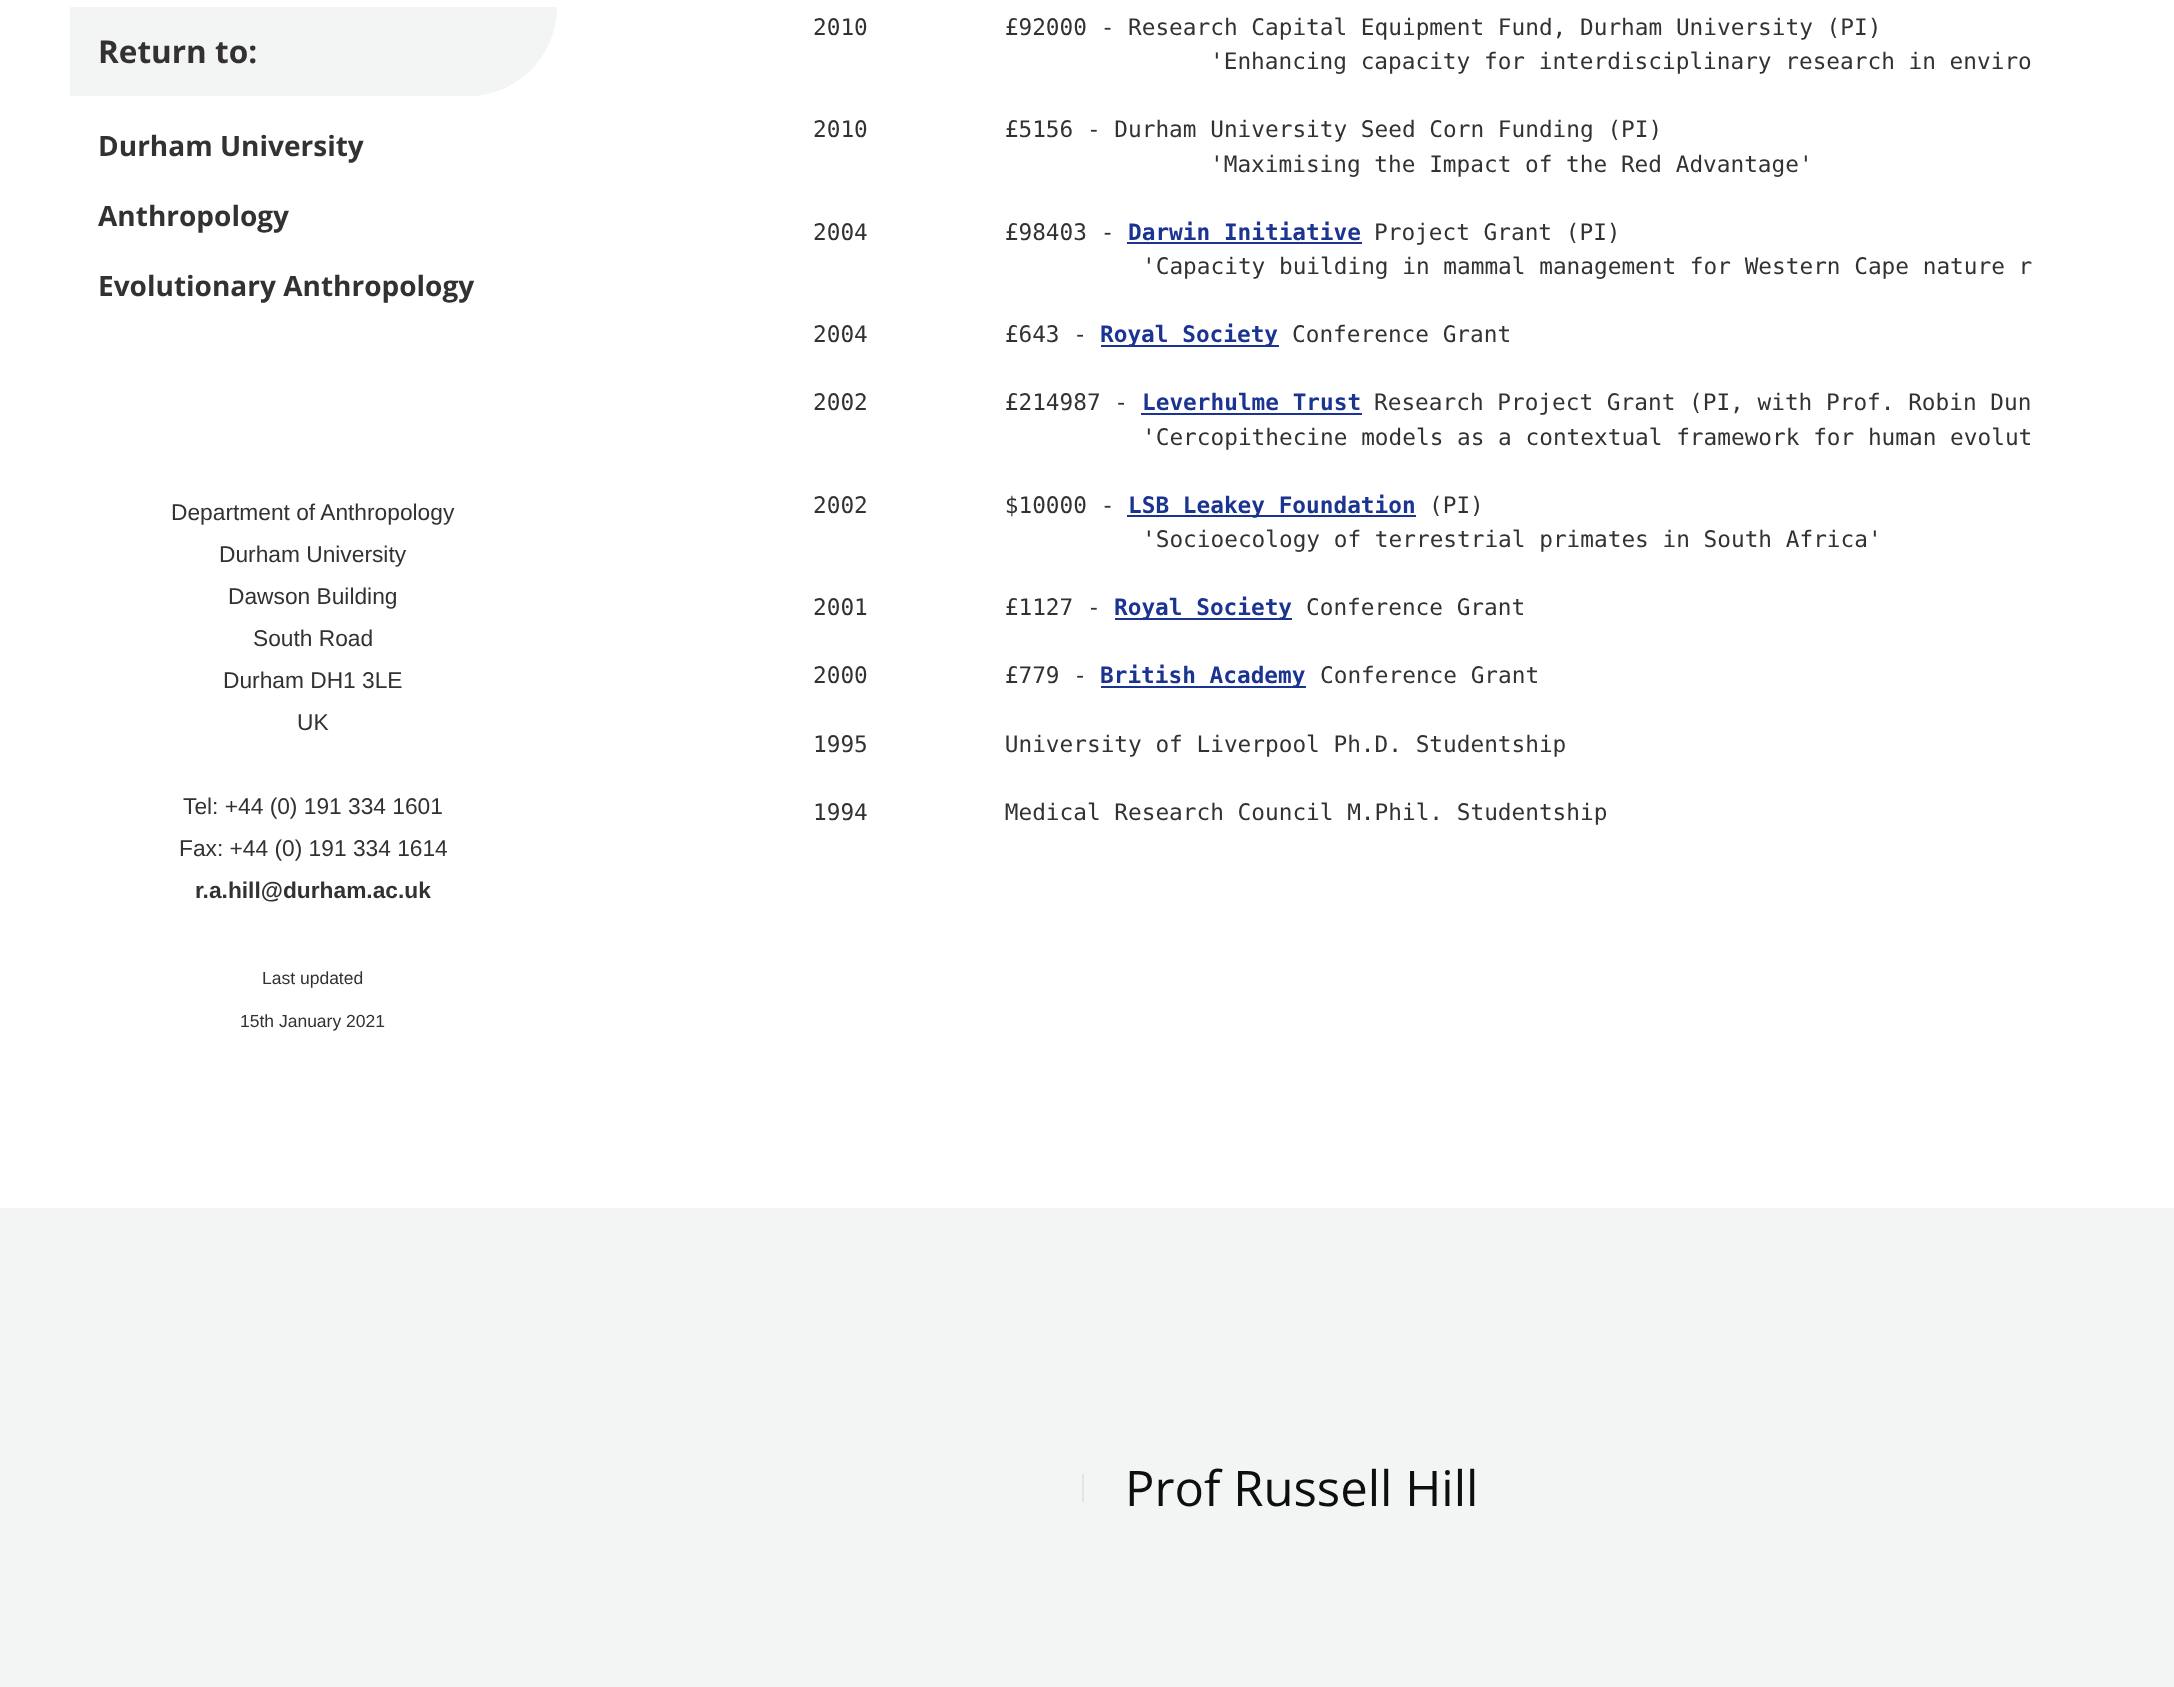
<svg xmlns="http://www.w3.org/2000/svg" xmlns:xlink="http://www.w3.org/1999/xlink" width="2174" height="1687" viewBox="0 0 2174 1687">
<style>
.cls-1{font:bold 31.5px Open Sans;fill:#333132}
.cls-2{font:bold 28px Open Sans;fill:#333132}
.cls-3{font:22.75px Liberation Sans;fill:#333132}
.cls-4{font:bold 22.75px Liberation Sans;fill:#333132}
.cls-5{font:17.5px Liberation Sans;fill:#333132}
.cls-6{font:22.75px DejaVu Sans Mono;fill:#333132}
.cls-7{font:bold 22.75px DejaVu Sans Mono;fill:#1b3492}
.cls-8{font:49px Open Sans;fill:#0e0e0e}
</style>
<rect width="100%" height="100%" fill="#ffffff"/>
<path fill="#f3f4f4" d="M70 7H557C557 56 517 96 468 96H70Z"/>
<rect fill="#1b3492" x="1127" y="242" width="235" height="2"/>
<rect fill="#1b3492" x="1101" y="345" width="178" height="2"/>
<rect fill="#1b3492" x="1141" y="413" width="221" height="2"/>
<rect fill="#1b3492" x="1127" y="515" width="289" height="2"/>
<rect fill="#1b3492" x="1115" y="618" width="177" height="2"/>
<rect fill="#1b3492" x="1101" y="686" width="205" height="2"/>
<rect fill="#f3f4f4" x="0" y="1208" width="2174" height="479"/>
<rect fill="#e3e5e5" x="1082" y="1474" width="2" height="28"/>
<text class="cls-1" x="98" y="63">Return to:</text>
<text class="cls-2" x="98" y="156">Durham University</text>
<text class="cls-2" x="98" y="226">Anthropology</text>
<text class="cls-2" x="98" y="296">Evolutionary Anthropology</text>
<text class="cls-3" x="171" y="520">Department of Anthropology</text>
<text class="cls-3" x="219" y="562">Durham University</text>
<text class="cls-3" x="228" y="604">Dawson Building</text>
<text class="cls-3" x="253" y="646">South Road</text>
<text class="cls-3" x="223" y="688">Durham DH1 3LE</text>
<text class="cls-3" x="297" y="730">UK</text>
<text class="cls-3" x="183" y="814">Tel: +44 (0) 191 334 1601</text>
<text class="cls-3" x="179" y="856">Fax: +44 (0) 191 334 1614</text>
<text class="cls-4" x="195" y="898">r.a.hill@durham.ac.uk</text>
<text class="cls-5" x="262" y="984">Last updated</text>
<text class="cls-5" x="240" y="1027">15th January 2021</text>
<text class="cls-6" xml:space="preserve" x="813" y="35">2010          £92000 - Research Capital Equipment Fund, Durham University (PI)</text>
<text class="cls-6" x="1210" y="69">'Enhancing capacity for interdisciplinary research in enviro</text>
<text class="cls-6" xml:space="preserve" x="813" y="137">2010          £5156 - Durham University Seed Corn Funding (PI)</text>
<text class="cls-6" x="1210" y="172">'Maximising the Impact of the Red Advantage'</text>
<text class="cls-6" xml:space="preserve" x="813" y="240">2004          £98403 -</text>
<text class="cls-7" x="1128" y="240">Darwin Initiative</text>
<text class="cls-6" x="1374" y="240">Project Grant (PI)</text>
<text class="cls-6" x="1142" y="274">'Capacity building in mammal management for Western Cape nature r</text>
<text class="cls-6" xml:space="preserve" x="813" y="342">2004          £643 -</text>
<text class="cls-7" x="1100" y="342">Royal Society</text>
<text class="cls-6" x="1292" y="342">Conference Grant</text>
<text class="cls-6" xml:space="preserve" x="813" y="410">2002          £214987 -</text>
<text class="cls-7" x="1142" y="410">Leverhulme Trust</text>
<text class="cls-6" x="1374" y="410">Research Project Grant (PI, with Prof. Robin Dun</text>
<text class="cls-6" x="1142" y="445">'Cercopithecine models as a contextual framework for human evolut</text>
<text class="cls-6" xml:space="preserve" x="813" y="513">2002          $10000 -</text>
<text class="cls-7" x="1128" y="513">LSB Leakey Foundation</text>
<text class="cls-6" x="1429" y="513">(PI)</text>
<text class="cls-6" x="1142" y="547">'Socioecology of terrestrial primates in South Africa'</text>
<text class="cls-6" xml:space="preserve" x="813" y="615">2001          £1127 -</text>
<text class="cls-7" x="1114" y="615">Royal Society</text>
<text class="cls-6" x="1306" y="615">Conference Grant</text>
<text class="cls-6" xml:space="preserve" x="813" y="683">2000          £779 -</text>
<text class="cls-7" x="1100" y="683">British Academy</text>
<text class="cls-6" x="1320" y="683">Conference Grant</text>
<text class="cls-6" xml:space="preserve" x="813" y="752">1995          University of Liverpool Ph.D. Studentship</text>
<text class="cls-6" xml:space="preserve" x="813" y="820">1994          Medical Research Council M.Phil. Studentship</text>
<text class="cls-8" x="1125" y="1506">Prof Russell Hill</text>
</svg>
